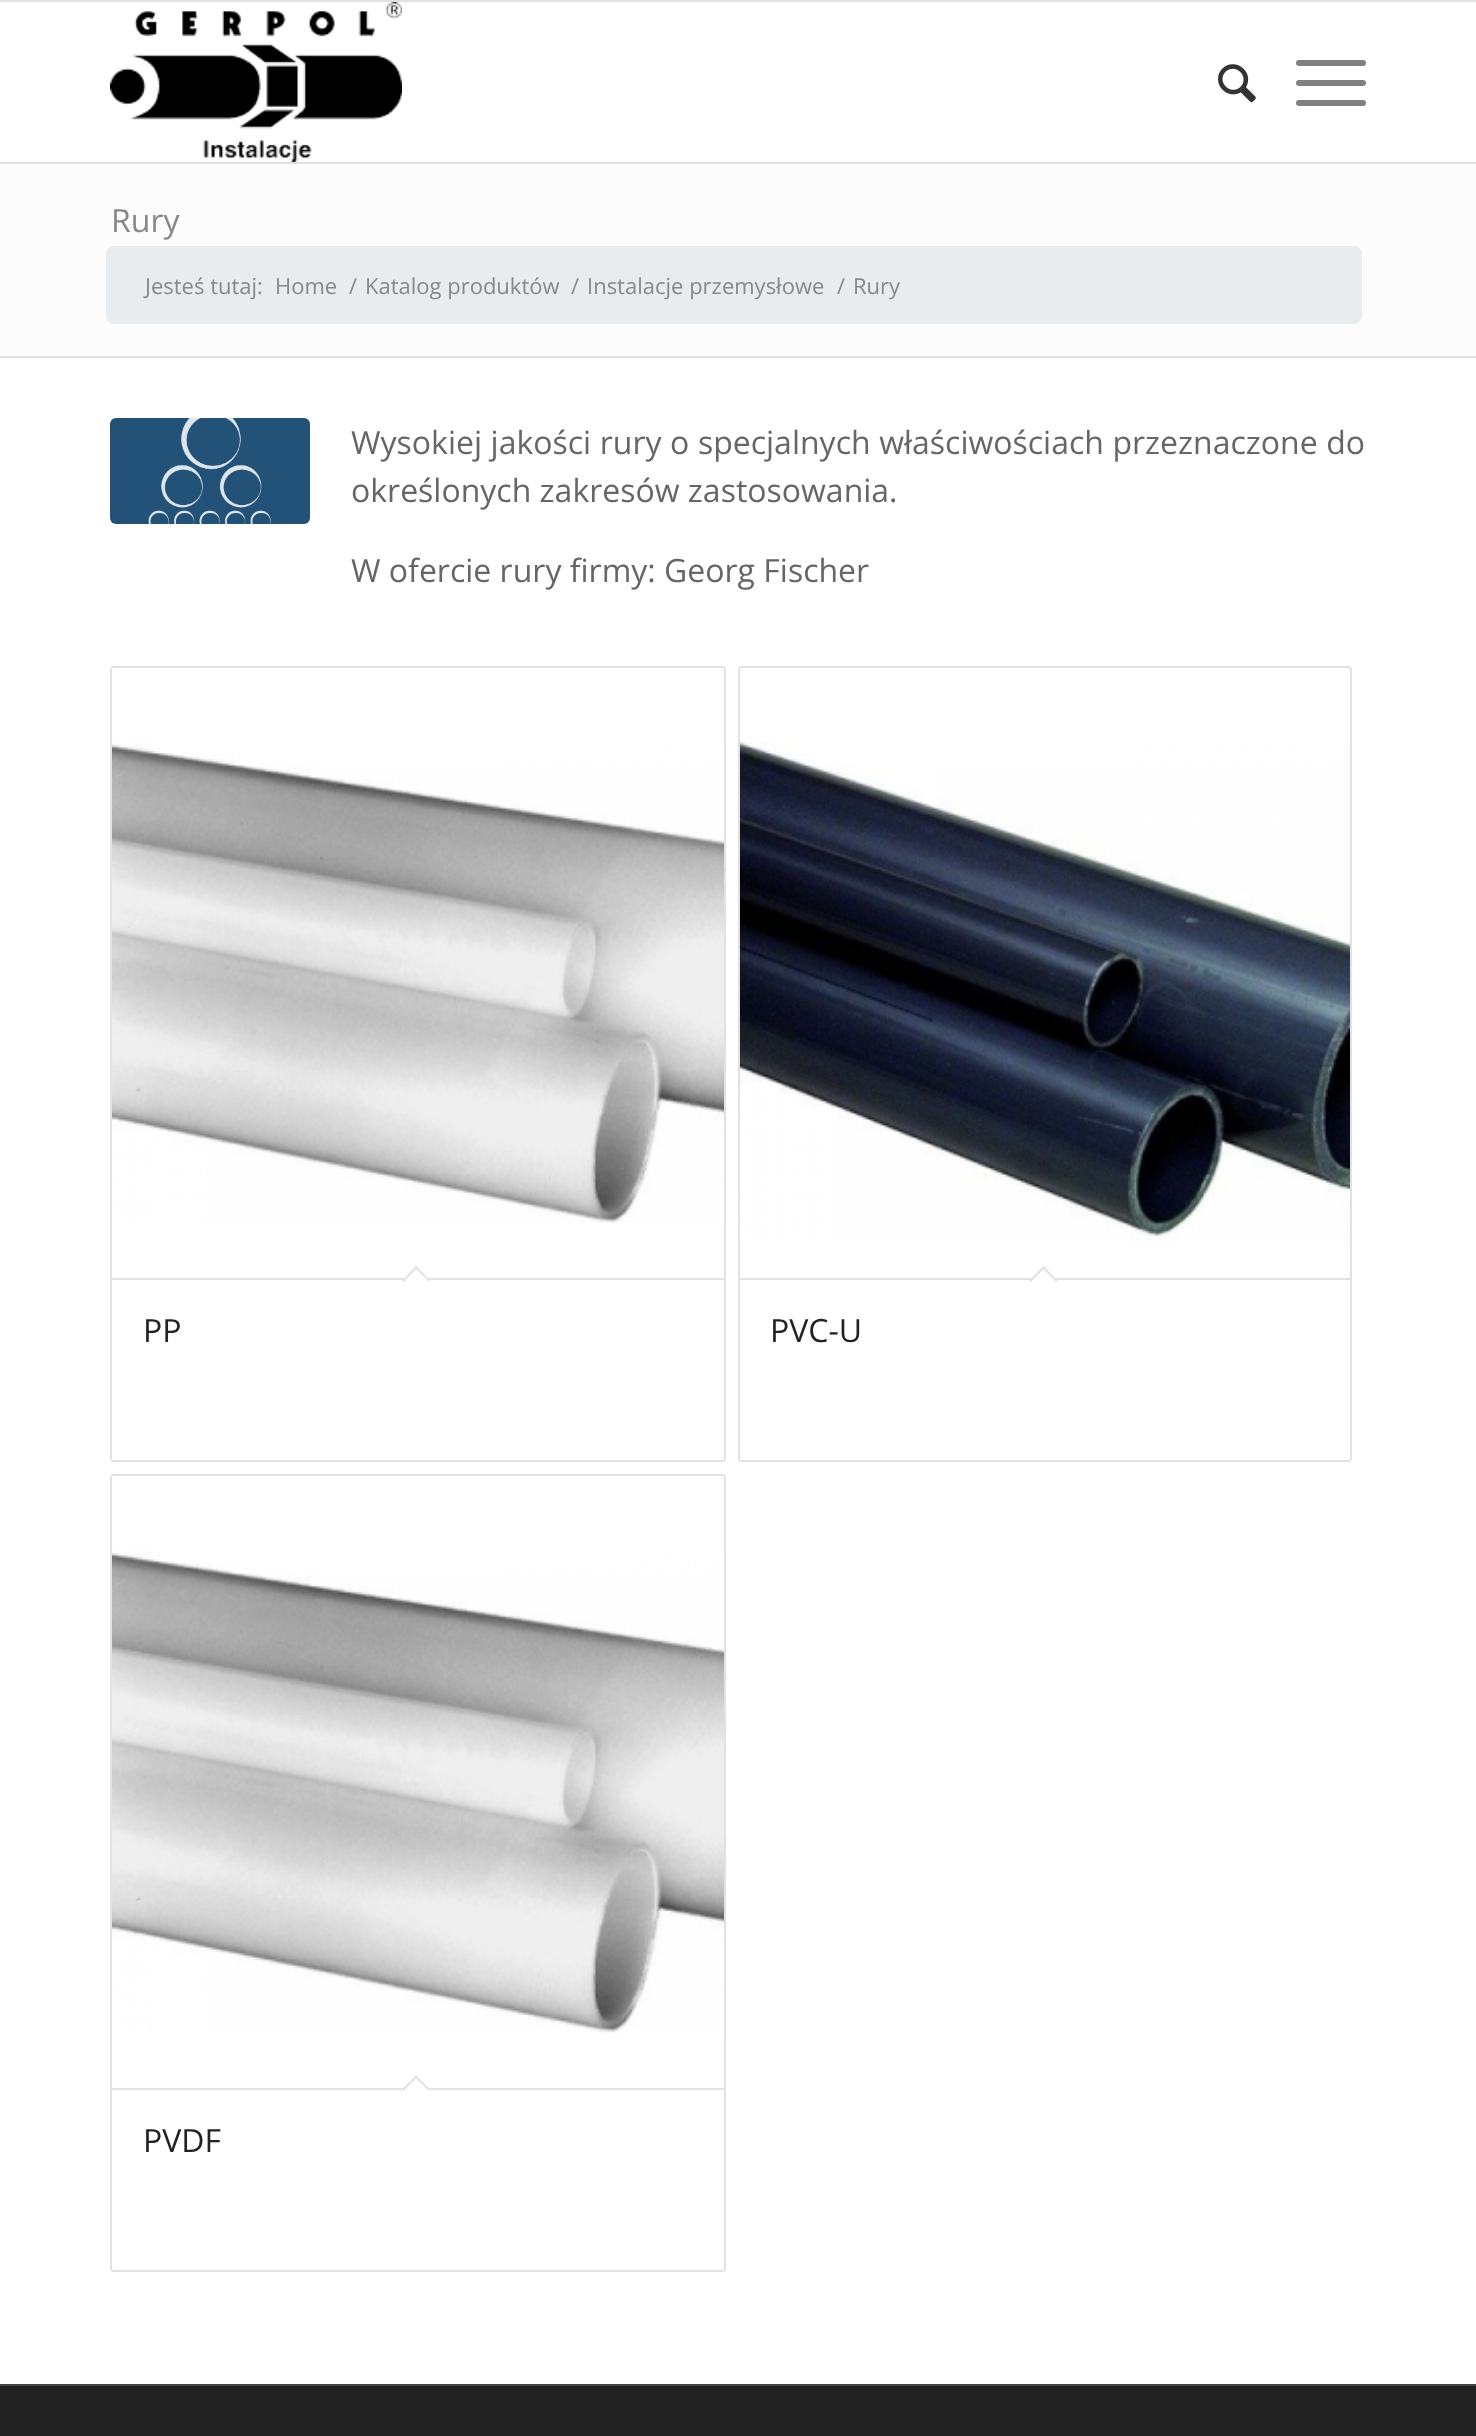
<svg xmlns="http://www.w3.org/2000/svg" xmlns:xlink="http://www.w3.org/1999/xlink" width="1476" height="2436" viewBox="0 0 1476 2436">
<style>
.cls-1{font:32px Open Sans;fill:#888888}
.cls-2{font:22px Open Sans;fill:#888888}
.cls-3{font:32px Open Sans;fill:#666666}
.cls-4{font:32px Open Sans;fill:#222222}
</style>
<rect width="100%" height="100%" fill="#ffffff"/>
<rect fill="#e1e1e1" x="0" y="0" width="1476" height="2"/>
<rect fill="#e1e1e1" x="0" y="162" width="1476" height="2"/>
<image xlink:href="image0.png" x="110" y="2" width="292" height="160"/>
<image xlink:href="image1.png" x="1218" y="64" width="38" height="39"/>
<rect fill="#808080" x="1296" y="80" width="70" height="6" rx="3"/>
<rect fill="#808080" x="1296" y="60" width="70" height="6" rx="3"/>
<rect fill="#808080" x="1296" y="100" width="70" height="6" rx="3"/>
<rect fill="#fcfcfc" x="0" y="164" width="1476" height="192"/>
<rect fill="#e9ecef" x="106" y="246" width="1256" height="78" rx="8"/>
<rect fill="#e1e1e1" x="0" y="356" width="1476" height="2"/>
<image xlink:href="image2.png" x="110" y="418" width="200" height="106"/>
<rect fill="none" stroke="#e1e1e1" stroke-width="2" x="111" y="667" width="614" height="794" rx="3"/>
<image xlink:href="image3.png" x="112" y="742" width="612" height="481"/>
<path fill="#ffffff" d="M112 1278H724V1458C724 1459 723 1460 722 1460H114C113 1460 112 1459 112 1458Z"/>
<rect fill="#e1e1e1" x="112" y="1278" width="612" height="2"/>
<path fill="#ffffff" d="M416 1266L430 1280.5L416 1294.5L402 1280.5Z"/>
<path fill="#e1e1e1" d="M416 1266L430 1280.5L429 1282L414.5 1267.5Z"/>
<path fill="#e1e1e1" d="M416 1266L417.5 1267.5L403.5 1282L402 1280.5Z"/>
<rect fill="none" stroke="#e1e1e1" stroke-width="2" x="739" y="667" width="612" height="794" rx="3"/>
<image xlink:href="image4.png" x="740" y="741" width="610" height="501"/>
<path fill="#ffffff" d="M740 1278H1350V1458C1350 1459 1349 1460 1348 1460H742C741 1460 740 1459 740 1458Z"/>
<rect fill="#e1e1e1" x="740" y="1278" width="610" height="2"/>
<path fill="#ffffff" d="M1043.5 1266L1057.5 1280.5L1043.5 1294.5L1029 1280.5Z"/>
<path fill="#e1e1e1" d="M1043.5 1266L1057.5 1280.5L1056 1282L1042 1267.5Z"/>
<path fill="#e1e1e1" d="M1043.5 1266L1045 1267.5L1030.5 1282L1029 1280.5Z"/>
<rect fill="none" stroke="#e1e1e1" stroke-width="2" x="111" y="1475" width="614" height="796" rx="3"/>
<image xlink:href="image5.png" x="112" y="1550" width="612" height="483"/>
<path fill="#ffffff" d="M112 2088H724V2268C724 2269 723 2270 722 2270H114C113 2270 112 2269 112 2268Z"/>
<rect fill="#e1e1e1" x="112" y="2088" width="612" height="2"/>
<path fill="#ffffff" d="M416 2075.5L430 2089.5L416 2104L402 2089.5Z"/>
<path fill="#e1e1e1" d="M416 2075.5L430 2089.5L429 2091L414.5 2077Z"/>
<path fill="#e1e1e1" d="M416 2075.5L417.5 2077L403.5 2091L402 2089.5Z"/>
<rect fill="#222222" x="0" y="2386" width="1476" height="50"/>
<rect fill="#444444" x="0" y="2384" width="1476" height="2"/>
<text class="cls-1" x="111" y="232">Rury</text>
<text class="cls-2" x="145" y="294">Jesteś tutaj:</text>
<text class="cls-2" x="275" y="294">Home</text>
<text class="cls-2" x="349" y="294">/</text>
<text class="cls-2" x="365" y="294">Katalog produktów</text>
<text class="cls-2" x="571" y="294">/</text>
<text class="cls-2" x="587" y="294">Instalacje przemysłowe</text>
<text class="cls-2" x="837" y="294">/</text>
<text class="cls-2" x="853" y="294">Rury</text>
<text class="cls-3"><tspan x="351" y="454" word-spacing="0.25">Wysokiej jakości rury o specjalnych właściwościach przeznaczone do</tspan><tspan x="351" y="502">określonych zakresów zastosowania.</tspan></text>
<text class="cls-3" x="351" y="582">W ofercie rury firmy: Georg Fischer</text>
<text class="cls-4" x="143" y="1342">PP</text>
<text class="cls-4" x="770" y="1342">PVC-U</text>
<text class="cls-4" x="143" y="2152">PVDF</text>
</svg>
